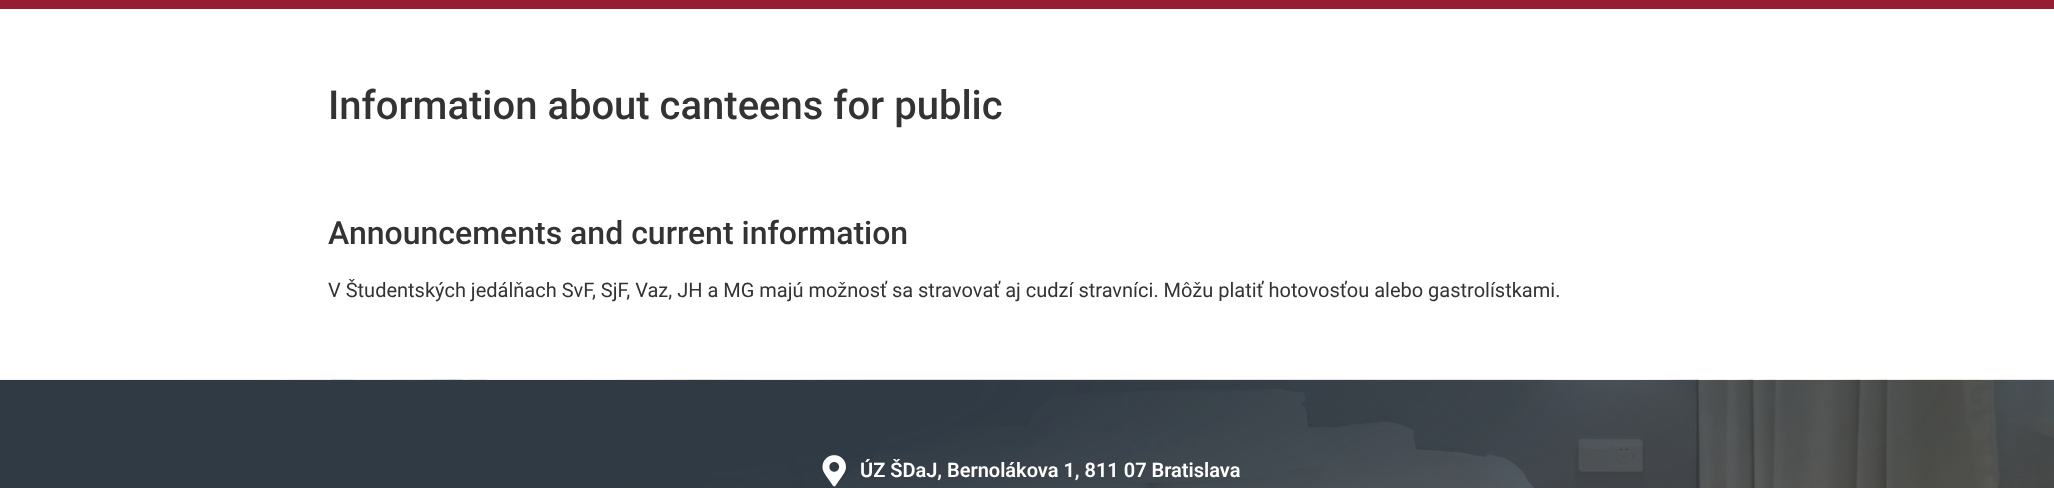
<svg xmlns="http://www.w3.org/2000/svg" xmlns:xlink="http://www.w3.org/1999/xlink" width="2054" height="488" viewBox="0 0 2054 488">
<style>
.cls-1{font:500 40px Roboto;fill:#333333}
.cls-2{font:500 32px Roboto;fill:#333333}
.cls-3{font:20px Roboto;fill:#333333}
.cls-4{font:600 20px Roboto;fill:#ffffff}
</style>
<rect width="100%" height="100%" fill="#ffffff"/>
<rect fill="#971d32" x="0" y="0" width="2054" height="9"/>
<image xlink:href="image0.png" x="0" y="379" width="2054" height="109"/>
<image xlink:href="image1.png" x="822" y="455" width="24" height="32"/>
<text class="cls-1" x="328" y="119">Information about canteens for public</text>
<text class="cls-2" x="328" y="244">Announcements and current information</text>
<text class="cls-3" x="328" y="297">V Študentských jedálňach SvF, SjF, Vaz, JH a MG majú možnosť sa stravovať aj cudzí stravníci. Môžu platiť hotovosťou alebo gastrolístkami.</text>
<text class="cls-4" x="860" y="477">ÚZ ŠDaJ, Bernolákova 1, 811 07 Bratislava</text>
</svg>
